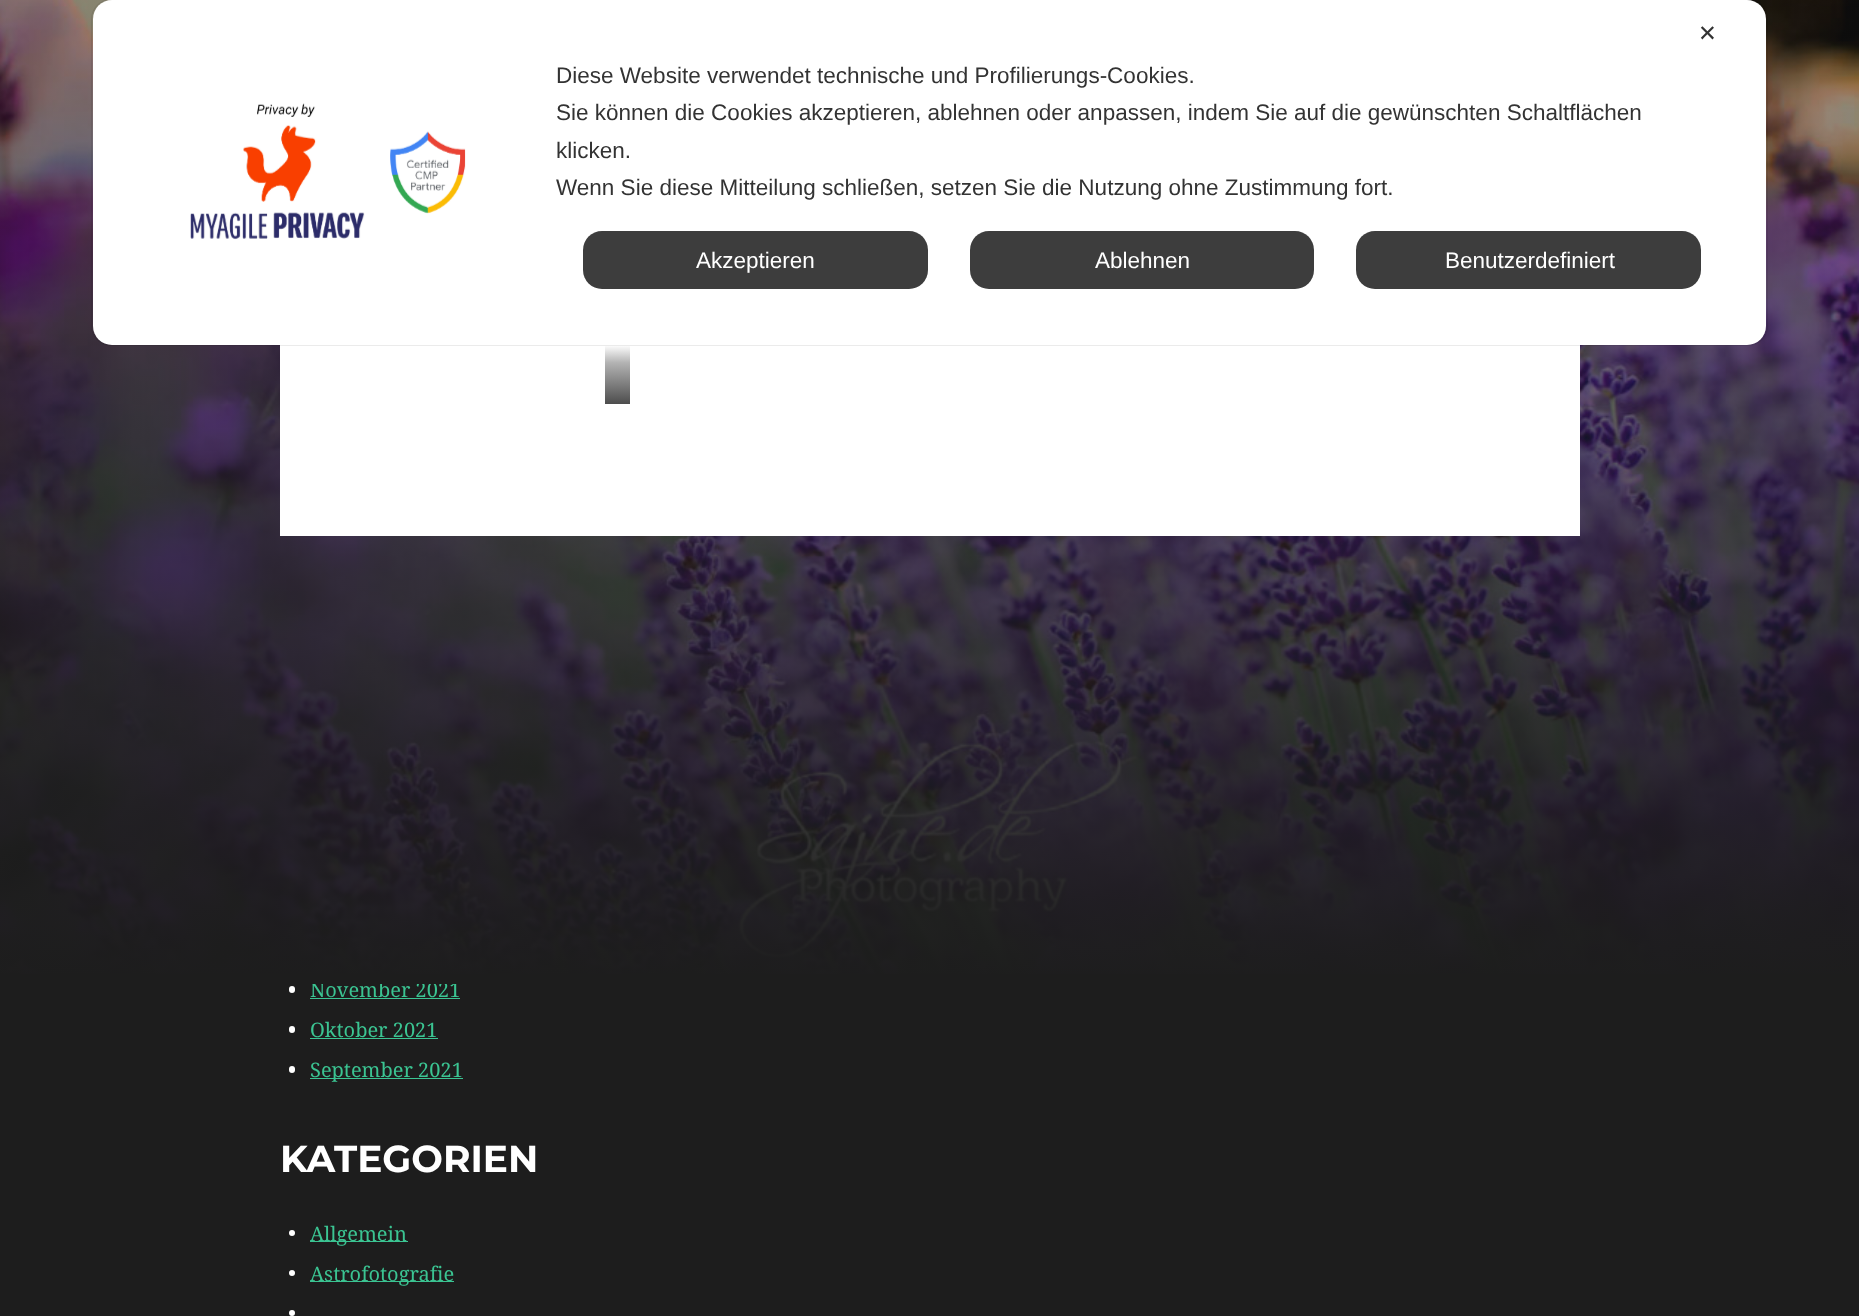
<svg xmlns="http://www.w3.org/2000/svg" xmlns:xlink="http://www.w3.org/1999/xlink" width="1859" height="1316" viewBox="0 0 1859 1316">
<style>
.cls-1{font:20px Droid Serif;fill:#3bc492}
.cls-2{font:22.5px DejaVu Sans;fill:#333333}
.cls-3{font:22.5px Liberation Sans;fill:#ffffff}
.cls-4{font:22.5px Liberation Sans;fill:#333333}
.cls-5{font:100 37.5px Montserrat;fill:#ffffff}
</style>
<defs>
<linearGradient id="g1" gradientUnits="userSpaceOnUse" x1="930" y1="-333" x2="930" y2="984"><stop offset="0" stop-color="#1d1d1d" stop-opacity="0.2"/><stop offset="1" stop-color="#1d1d1d"/></linearGradient>
<linearGradient id="g2" gradientUnits="userSpaceOnUse" x1="618" y1="404" x2="618" y2="345"><stop offset="0" stop-color="#4d4d4d"/><stop offset="0.7" stop-color="#b3b3b3"/><stop offset="1" stop-color="#ffffff"/></linearGradient>
</defs>
<rect width="100%" height="100%" fill="#1d1d1d"/>
<image xlink:href="image0.png" x="0" y="0" width="1859" height="974"/>
<rect fill="#ffffff" x="289" y="986" width="6" height="7" rx="3"/>
<rect fill="#3bc492" x="310" y="998" width="150" height="1"/>
<rect fill="#ffffff" x="289" y="1026" width="6" height="7" rx="3"/>
<rect fill="#3bc492" x="310" y="1038" width="128" height="1"/>
<rect fill="#ffffff" x="289" y="1066" width="6" height="7" rx="3"/>
<rect fill="#3bc492" x="310" y="1078" width="153" height="1"/>
<circle fill="#ffffff" cx="292" cy="1233" r="3"/>
<rect fill="#3bc492" x="310" y="1241" width="98" height="1"/>
<circle fill="#ffffff" cx="292" cy="1273" r="3"/>
<rect fill="#3bc492" x="310" y="1281" width="144" height="1"/>
<circle fill="#ffffff" cx="292" cy="1313" r="3"/>
<text class="cls-1" x="310" y="997">November 2021</text>
<rect fill="url(#g1)" x="0" y="0" width="1859" height="984"/>
<rect fill="#ffffff" x="280" y="345" width="1300" height="191"/>
<rect fill="none" stroke="#000000" stroke-opacity="0.08" x="91.5" y="-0.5" width="1676" height="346" rx="19.5"/>
<rect fill="#ffffff" x="93" y="0" width="1673" height="345" rx="19"/>
<text class="cls-2" x="1698" y="41">✕</text>
<rect fill="#3d3d3d" x="1356" y="231" width="345" height="58" rx="19"/>
<text class="cls-3" x="1445" y="268">Benutzerdefiniert</text>
<rect fill="#3d3d3d" x="970" y="231" width="344" height="58" rx="19"/>
<text class="cls-3" x="1095" y="268">Ablehnen</text>
<rect fill="#3d3d3d" x="583" y="231" width="345" height="58" rx="19"/>
<text class="cls-3" x="696" y="268">Akzeptieren</text>
<text class="cls-4" x="556" y="195">Wenn Sie diese Mitteilung schließen, setzen Sie die Nutzung ohne Zustimmung fort.</text>
<text class="cls-4" x="556" y="158">klicken.</text>
<text class="cls-4" x="556" y="120">Sie können die Cookies akzeptieren, ablehnen oder anpassen, indem Sie auf die gewünschten Schaltflächen</text>
<text class="cls-4" x="556" y="83">Diese Website verwendet technische und Profilierungs-Cookies.</text>
<image xlink:href="image1.png" x="190" y="103" width="276" height="137"/>
<rect fill="url(#g2)" x="605" y="346" width="25" height="58"/>
<text class="cls-1" x="310" y="1037">Oktober 2021</text>
<text class="cls-1" x="310" y="1077">September 2021</text>
<text class="cls-5" x="280" y="1172">KATEGORIEN</text>
<text class="cls-1" x="310" y="1241">Allgemein</text>
<text class="cls-1" x="310" y="1281">Astrofotografie</text>
</svg>
